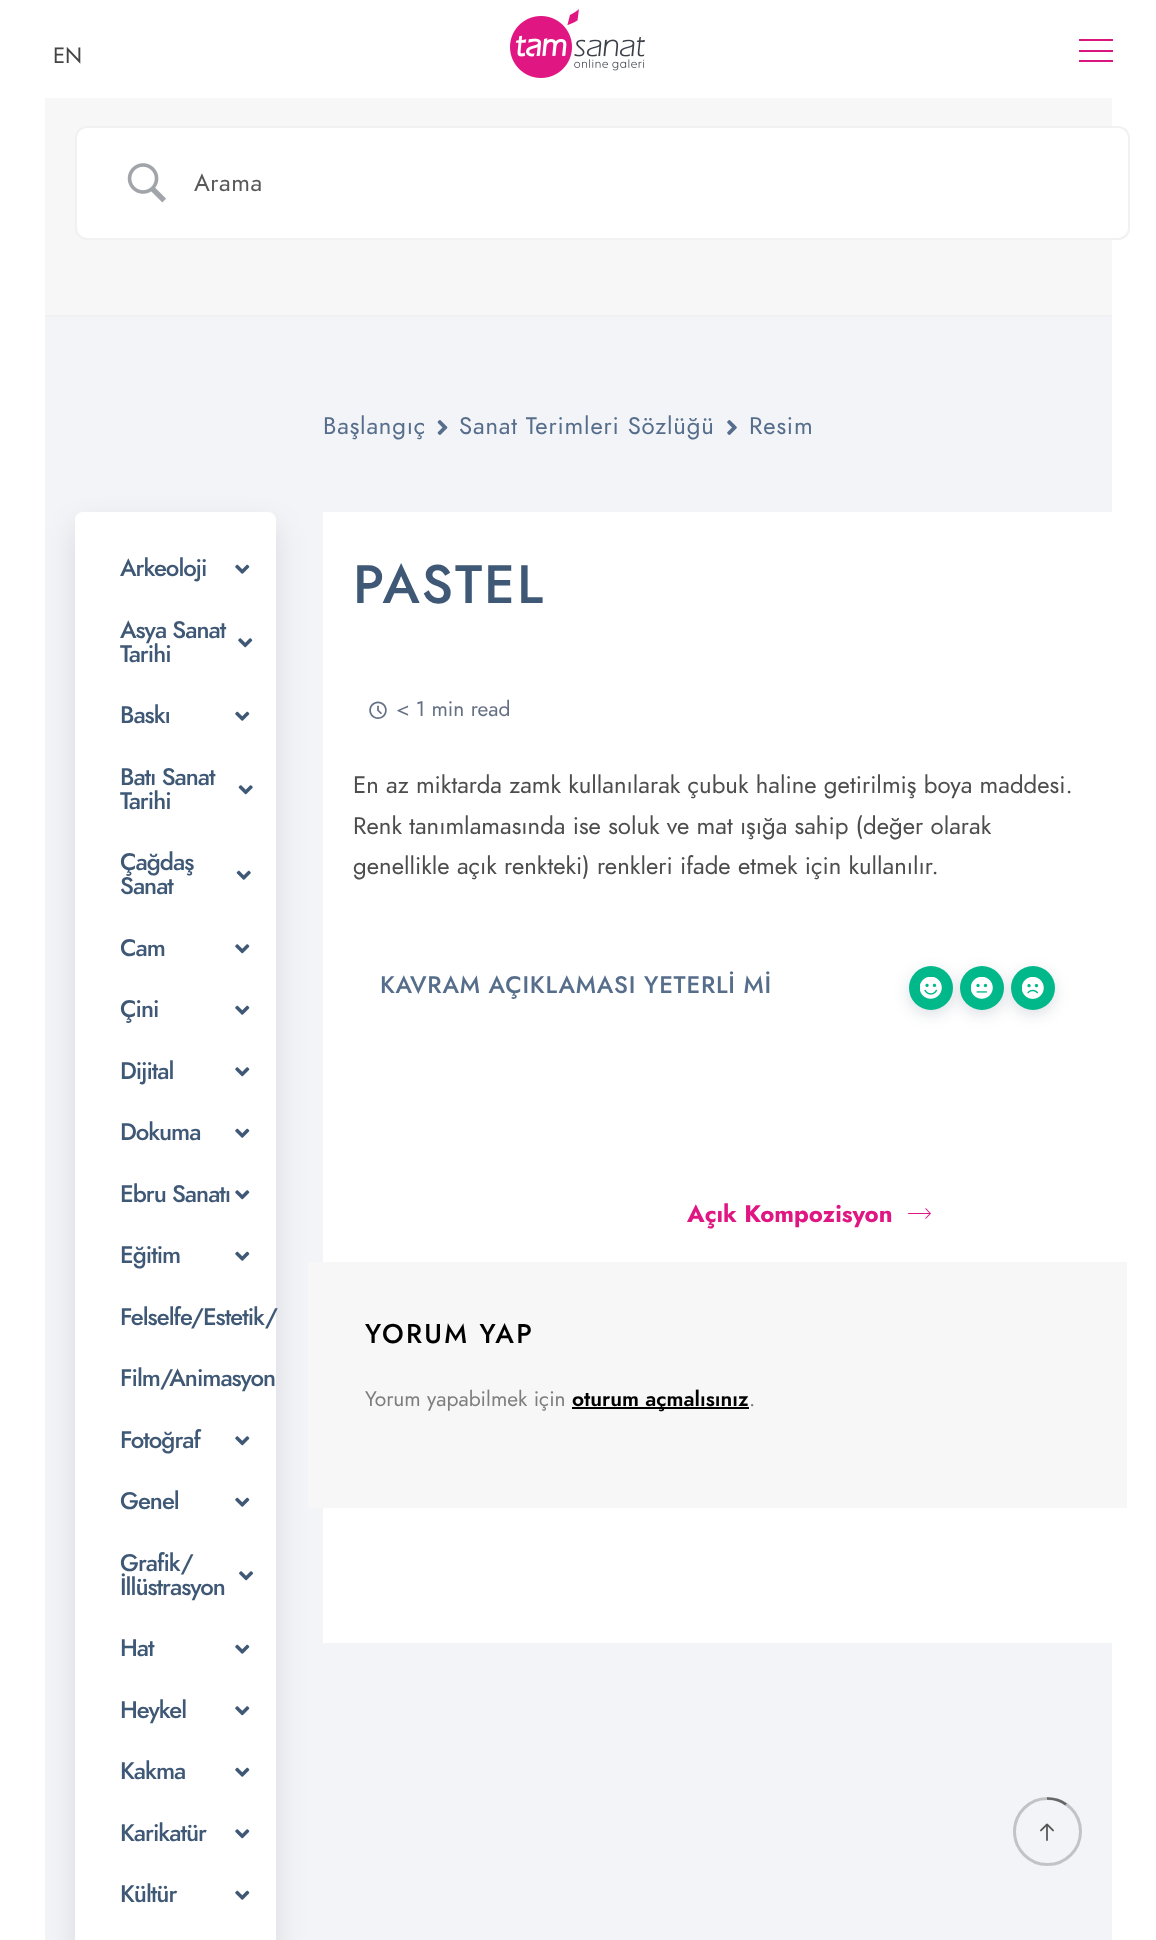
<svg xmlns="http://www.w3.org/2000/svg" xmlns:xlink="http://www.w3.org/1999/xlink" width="1156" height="1940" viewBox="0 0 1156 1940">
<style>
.cls-1{font:22px Jost;fill:#444444}
.cls-2{font:24px Jost;letter-spacing:0.5px;fill:#595959}
.cls-3{font:500 24px Jost;letter-spacing:-1px;fill:#3f5876}
.cls-4{font:24px Jost;letter-spacing:0.8px;fill:#566e8b}
.cls-5{font:500 54px Jost;letter-spacing:2px;fill:#3f5876}
.cls-6{font:21px Jost;fill:#667085}
.cls-7{font:24px Jost;fill:#4d4d4d}
.cls-8{font:500 24px Jost;letter-spacing:0.75px;fill:#566e8b}
.cls-9{font:bold 24px Jost;fill:#e01682}
.cls-10{font:500 27px Jost;letter-spacing:2.25px;fill:#000000}
.cls-11{font:21px Jost;fill:#7e7e7e}
.cls-12{font:600 21px Jost;fill:#000000}
</style>
<rect width="100%" height="100%" fill="#ffffff"/>
<image xlink:href="image0.png" x="510" y="9" width="135" height="69"/>
<rect fill="#db147e" x="1079" y="50" width="34" height="2"/>
<rect fill="#db147e" x="1079" y="39" width="34" height="2"/>
<rect fill="#db147e" x="1079" y="60" width="34" height="2"/>
<rect fill="#f2f4f7" x="45" y="317" width="1067" height="1623"/>
<rect fill="#f7f7f7" x="45" y="98" width="1067" height="217"/>
<rect fill="#f1f1f1" x="45" y="315" width="1067" height="2"/>
<rect fill="#ffffff" stroke="#f1f1f1" stroke-width="2" x="76" y="127" width="1053" height="112" rx="11"/>
<image xlink:href="image1.png" x="127" y="163" width="39" height="40"/>
<rect fill="#ffffff" x="323" y="512" width="789" height="1131"/>
<rect fill="#f7f7f7" x="308" y="1262" width="819" height="246"/>
<rect fill="#000123" fill-opacity="0.1" filter="blur(15px)" x="75" y="524" width="201" height="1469" rx="8"/>
<rect fill="#ffffff" x="75" y="512" width="201" height="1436" rx="8"/>
<image xlink:href="image2.png" x="235" y="564" width="15" height="10"/>
<image xlink:href="image3.png" x="238" y="638" width="15" height="10"/>
<image xlink:href="image2.png" x="235" y="711" width="15" height="10"/>
<image xlink:href="image4.png" x="238" y="785" width="15" height="10"/>
<image xlink:href="image5.png" x="236" y="870" width="15" height="10"/>
<image xlink:href="image6.png" x="235" y="944" width="15" height="10"/>
<image xlink:href="image2.png" x="235" y="1005" width="15" height="10"/>
<image xlink:href="image6.png" x="235" y="1067" width="15" height="10"/>
<image xlink:href="image2.png" x="235" y="1128" width="15" height="10"/>
<image xlink:href="image6.png" x="235" y="1190" width="15" height="10"/>
<image xlink:href="image2.png" x="235" y="1251" width="15" height="10"/>
<image xlink:href="image6.png" x="235" y="1436" width="15" height="10"/>
<image xlink:href="image2.png" x="235" y="1497" width="15" height="10"/>
<image xlink:href="image7.png" x="239" y="1571" width="15" height="10"/>
<image xlink:href="image2.png" x="235" y="1644" width="15" height="10"/>
<image xlink:href="image6.png" x="235" y="1706" width="15" height="10"/>
<image xlink:href="image2.png" x="235" y="1767" width="15" height="10"/>
<image xlink:href="image6.png" x="235" y="1829" width="15" height="10"/>
<image xlink:href="image2.png" x="235" y="1890" width="15" height="10"/>
<image xlink:href="image8.png" x="437" y="420" width="11" height="15"/>
<image xlink:href="image9.png" x="727" y="420" width="10" height="15"/>
<image xlink:href="image10.png" x="369" y="701" width="18" height="18"/>
<rect fill="#031d3c" fill-opacity="0.15" filter="blur(7.5px)" x="909" y="971" width="44" height="43" rx="21.5"/>
<circle fill="#00b88a" cx="931" cy="988" r="22"/>
<rect fill="#031d3c" fill-opacity="0.15" filter="blur(7.5px)" x="960" y="971" width="44" height="43" rx="21.5"/>
<image xlink:href="image11.png" x="920" y="977" width="22" height="22"/>
<circle fill="#00b88a" cx="982" cy="988" r="22"/>
<rect fill="#031d3c" fill-opacity="0.15" filter="blur(7.5px)" x="1011" y="971" width="44" height="43" rx="21.5"/>
<image xlink:href="image12.png" x="971" y="977" width="22" height="22"/>
<circle fill="#00b88a" cx="1033" cy="988" r="22"/>
<image xlink:href="image13.png" x="1022" y="977" width="22" height="22"/>
<image xlink:href="image14.png" x="908" y="1208" width="23" height="11"/>
<rect fill="#000000" x="572" y="1407" width="177" height="2"/>
<circle fill="none" stroke="#c2c3c6" stroke-width="3" cx="1047.5" cy="1831.5" r="33"/>
<path fill="none" stroke="#666666" stroke-width="2.7" d="M1047 1798.5C1054 1798.5 1061 1800.5 1066 1804.5"/>
<image xlink:href="image15.png" x="1040" y="1823" width="14" height="18"/>
<text class="cls-1" x="53" y="63">EN</text>
<text class="cls-2" x="194" y="191">Arama</text>
<text class="cls-3" x="120" y="576">Arkeoloji</text>
<text class="cls-3"><tspan x="120" y="638">Asya Sanat</tspan><tspan x="120" y="662">Tarihi</tspan></text>
<text class="cls-3" x="120" y="723">Baskı</text>
<text class="cls-3"><tspan x="120" y="785">Batı Sanat</tspan><tspan x="120" y="809">Tarihi</tspan></text>
<text class="cls-3"><tspan x="120" y="870">Çağdaş</tspan><tspan x="120" y="894">Sanat</tspan></text>
<text class="cls-3" x="120" y="956">Cam</text>
<text class="cls-3" x="120" y="1017">Çini</text>
<text class="cls-3" x="120" y="1079">Dijital</text>
<text class="cls-3" x="120" y="1140">Dokuma</text>
<text class="cls-3" x="120" y="1202">Ebru Sanatı</text>
<text class="cls-3" x="120" y="1263">Eğitim</text>
<text class="cls-3" x="120" y="1325">Felselfe/Estetik/</text>
<text class="cls-3" x="120" y="1386">Film/Animasyon</text>
<text class="cls-3" x="120" y="1448">Fotoğraf</text>
<text class="cls-3" x="120" y="1509">Genel</text>
<text class="cls-3"><tspan x="120" y="1571">Grafik/</tspan><tspan x="120" y="1595">İllüstrasyon</tspan></text>
<text class="cls-3" x="120" y="1656">Hat</text>
<text class="cls-3" x="120" y="1718">Heykel</text>
<text class="cls-3" x="120" y="1779">Kakma</text>
<text class="cls-3" x="120" y="1841">Karikatür</text>
<text class="cls-3" x="120" y="1902">Kültür</text>
<text class="cls-4" x="323" y="434">Başlangıç</text>
<text class="cls-4" x="459" y="434">Sanat Terimleri Sözlüğü</text>
<text class="cls-4" x="749" y="434">Resim</text>
<text class="cls-5" x="353" y="603">PASTEL</text>
<text class="cls-6" x="396" y="716">&lt; 1 min read</text>
<text class="cls-7"><tspan x="353" y="793">En az miktarda zamk kullanılarak çubuk haline getirilmiş boya maddesi.</tspan><tspan x="353" y="834">Renk tanımlamasında ise soluk ve mat ışığa sahip (değer olarak</tspan><tspan x="353" y="874">genellikle açık renkteki) renkleri ifade etmek için kullanılır.</tspan></text>
<text class="cls-8" x="380" y="993">KAVRAM AÇIKLAMASI YETERLİ Mİ</text>
<text class="cls-9" x="687" y="1222">Açık Kompozisyon</text>
<text class="cls-10" x="365" y="1343">YORUM YAP</text>
<text class="cls-11" x="365" y="1406">Yorum yapabilmek için</text>
<text class="cls-12" x="572" y="1406">oturum açmalısınız</text>
<text class="cls-11" x="749" y="1406">.</text>
</svg>
